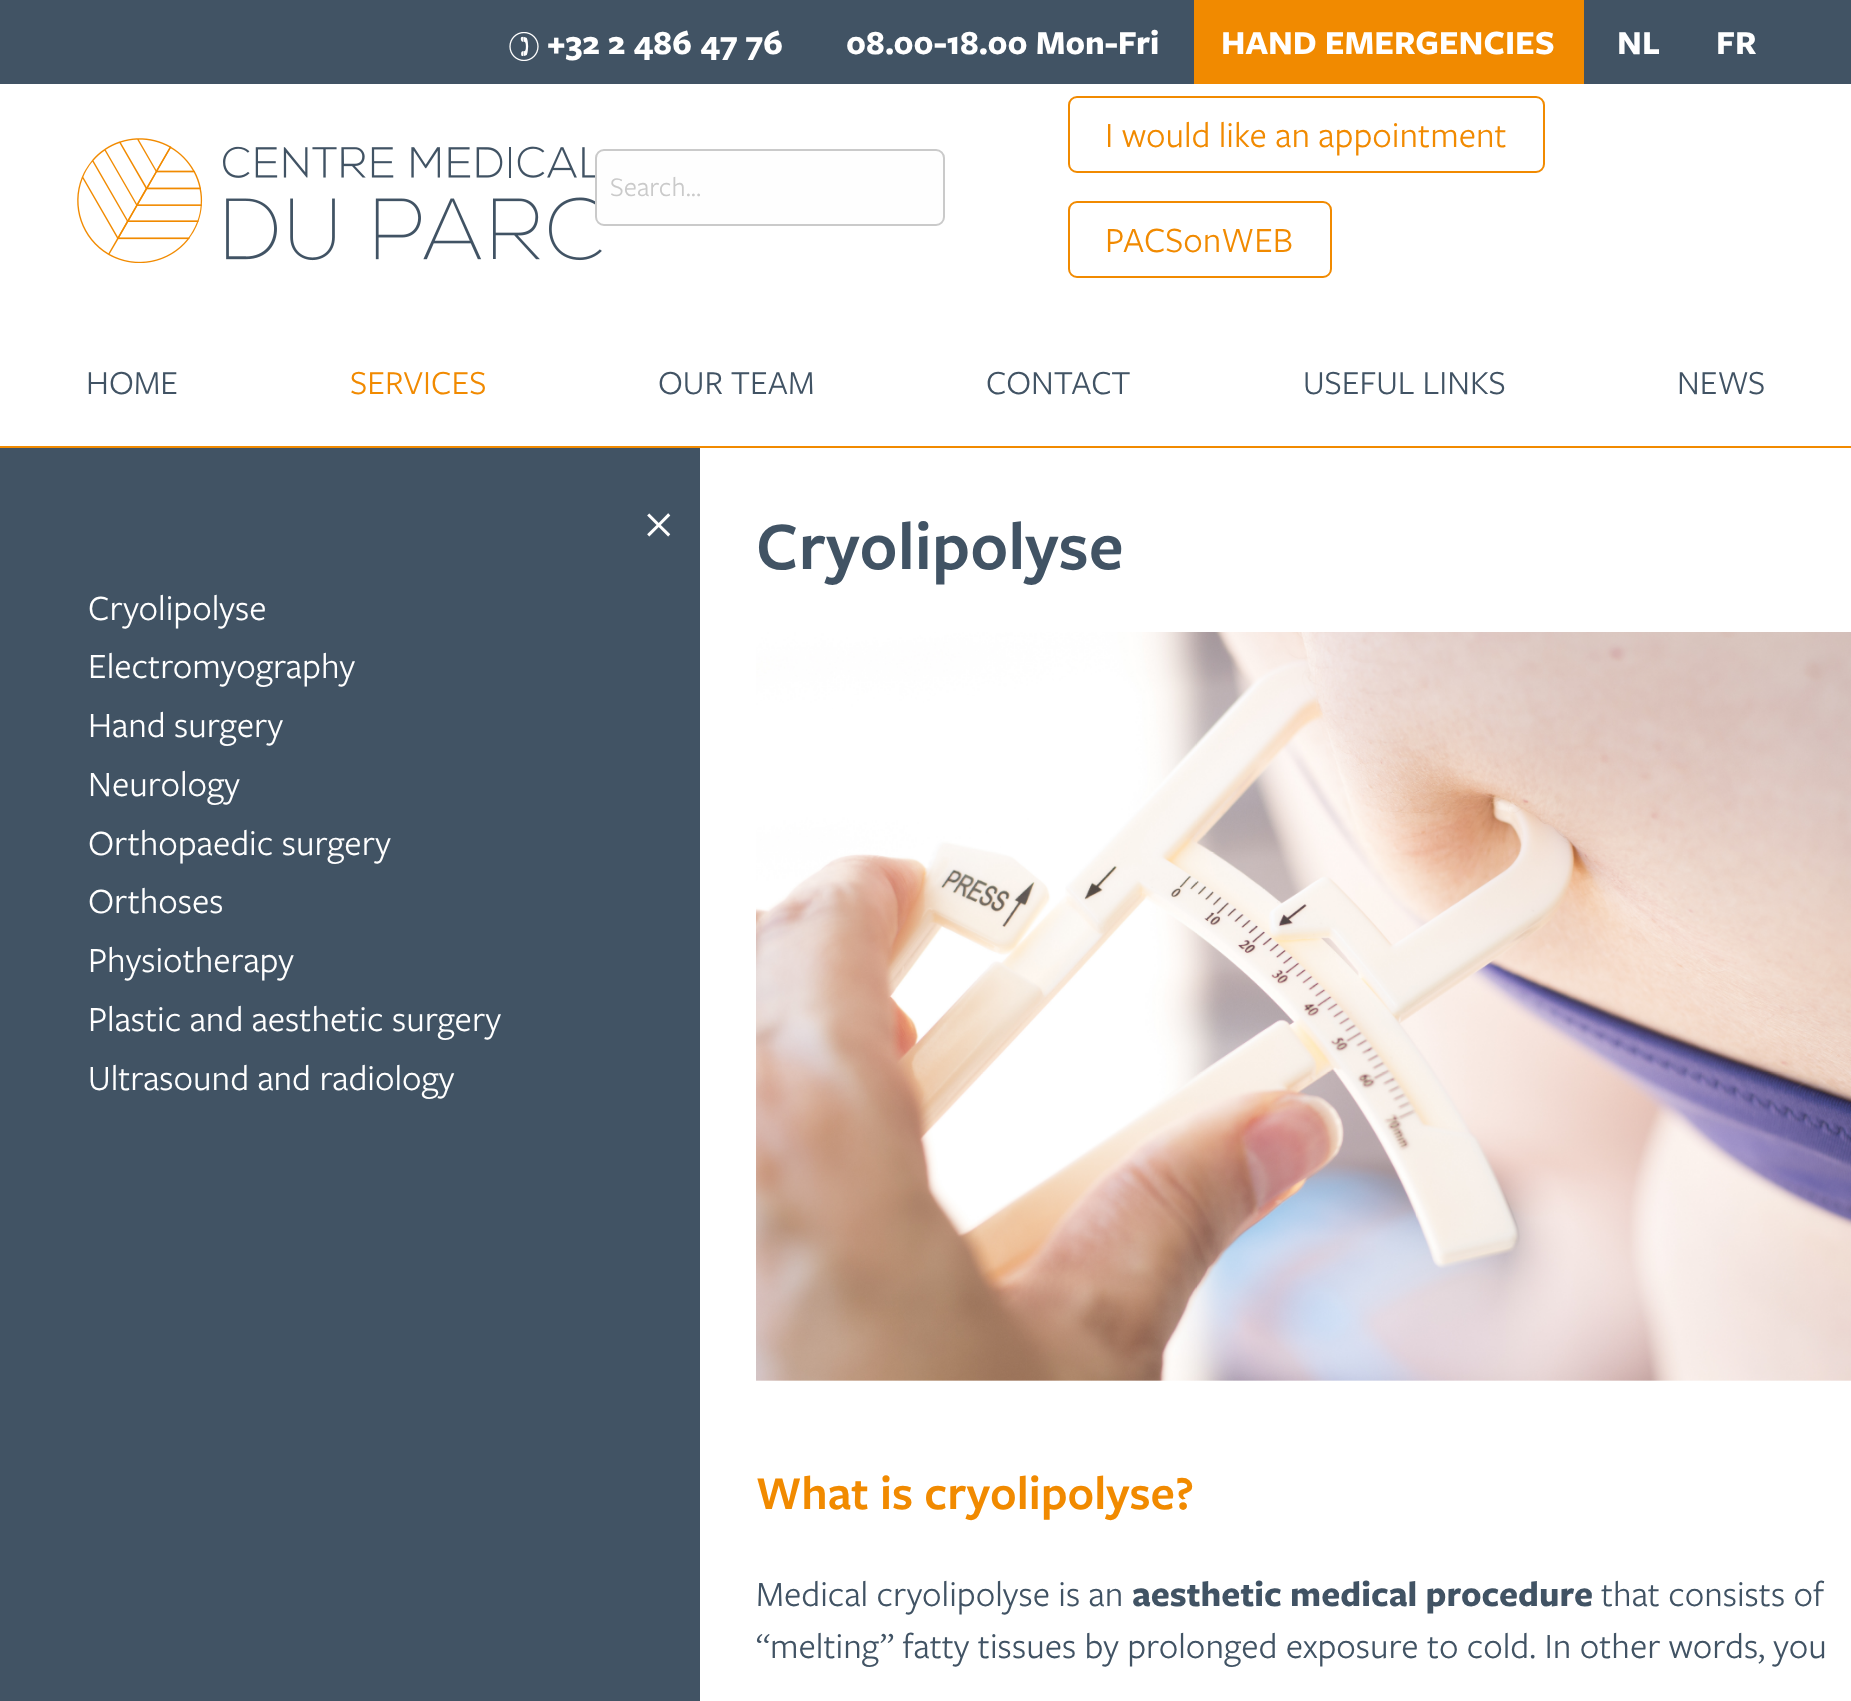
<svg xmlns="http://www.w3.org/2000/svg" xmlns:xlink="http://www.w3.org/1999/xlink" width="1851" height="1701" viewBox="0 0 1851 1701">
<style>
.cls-1{font:bold 35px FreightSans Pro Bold;fill:#ffffff}
.cls-2{font:28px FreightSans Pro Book;fill:#cacaca}
.cls-3{font:36.75px FreightSans Pro Book;fill:#f18a00}
.cls-4{font:35px FreightSans Pro Book;fill:#415364}
.cls-5{font:35px FreightSans Pro Book;fill:#f18a00}
.cls-6{font:56px FreightSans Pro Book;fill:#ffffff}
.cls-7{font:36.75px FreightSans Pro Book;fill:#ffffff}
.cls-8{font:600 70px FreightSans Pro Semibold;fill:#415364}
.cls-9{font:600 49px FreightSans Pro Semibold;fill:#f18a00}
.cls-10{font:36.75px FreightSans Pro Book;fill:#415364}
.cls-11{font:bold 36.75px FreightSans Pro Bold;fill:#415364}
</style>
<rect width="100%" height="100%" fill="#ffffff"/>
<rect fill="#415364" x="0" y="0" width="1851" height="84"/>
<image xlink:href="image0.png" x="509" y="32" width="30" height="29"/>
<rect fill="#f18a00" x="1194" y="0" width="390" height="84"/>
<image xlink:href="image1.png" x="77" y="138" width="525" height="125"/>
<rect fill="#fefefe" stroke="#cacaca" stroke-width="2" x="596" y="150" width="348" height="75" rx="8"/>
<rect fill="none" stroke="#f18a00" stroke-width="2" x="1069" y="97" width="475" height="75" rx="8"/>
<rect fill="none" stroke="#f18a00" stroke-width="2" x="1069" y="202" width="262" height="75" rx="8"/>
<rect fill="#f18a00" x="0" y="446" width="1851" height="2"/>
<rect fill="#415364" x="0" y="448" width="700" height="1253"/>
<image xlink:href="image2.png" x="756" y="632" width="1095" height="749"/>
<text class="cls-1" x="547" y="54">+32 2 486 47 76</text>
<text class="cls-1" x="846" y="54">08.00-18.00 Mon-Fri</text>
<text class="cls-1" x="1221" y="54">HAND EMERGENCIES</text>
<text class="cls-1" x="1617" y="54">NL</text>
<text class="cls-1" x="1716" y="54">FR</text>
<text class="cls-2" x="610" y="196">Search...</text>
<text class="cls-3" x="1105" y="147">I would like an appointment</text>
<text class="cls-3" x="1105" y="252">PACSonWEB</text>
<text class="cls-4" x="86" y="394">HOME</text>
<text class="cls-5" x="350" y="394">SERVICES</text>
<text class="cls-4" x="658" y="394">OUR TEAM</text>
<text class="cls-4" x="986" y="394">CONTACT</text>
<text class="cls-4" x="1303" y="394">USEFUL LINKS</text>
<text class="cls-4" x="1677" y="394">NEWS</text>
<text class="cls-6" x="645" y="538">×</text>
<text class="cls-7"><tspan x="88" y="620">Cryolipolyse</tspan><tspan x="88" y="678">Electromyography</tspan><tspan x="88" y="737">Hand surgery</tspan><tspan x="88" y="796">Neurology</tspan><tspan x="88" y="855">Orthopaedic surgery</tspan><tspan x="88" y="913">Orthoses</tspan><tspan x="88" y="972">Physiotherapy</tspan><tspan x="88" y="1031">Plastic and aesthetic surgery</tspan><tspan x="88" y="1090">Ultrasound and radiology</tspan></text>
<text class="cls-8" x="756" y="569">Cryolipolyse</text>
<text class="cls-9" x="756" y="1509">What is cryolipolyse?</text>
<text class="cls-10" x="756" y="1606">Medical cryolipolyse is an</text>
<text class="cls-11" x="1132" y="1606">aesthetic medical procedure</text>
<text class="cls-10" x="1601" y="1606">that consists of</text>
<text class="cls-10" x="756" y="1658">“melting” fatty tissues by prolonged exposure to cold. In other words, you</text>
</svg>
